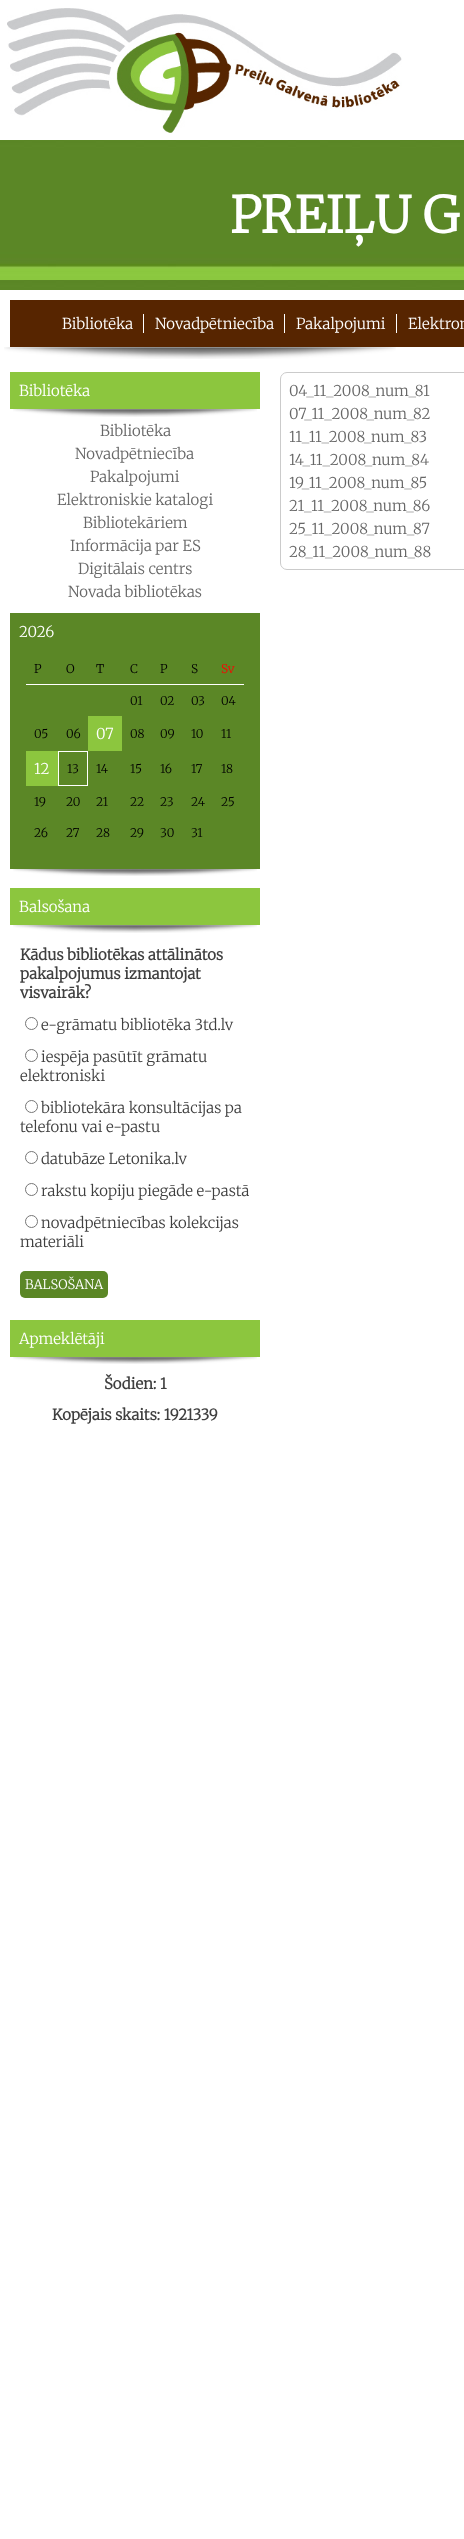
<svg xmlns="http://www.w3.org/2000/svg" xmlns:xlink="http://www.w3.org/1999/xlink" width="464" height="2539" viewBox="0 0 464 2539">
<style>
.cls-1{font:bold 50px Merriweather;fill:#ffffff}
.cls-2{font:300 15px Merriweather;fill:#ffffff}
.cls-3{font:300 15px Merriweather;fill:#676767}
.cls-4{font:300 12px Merriweather;fill:#000000}
.cls-5{font:300 12px Merriweather;fill:#ff0000}
.cls-6{font:bold 15px Merriweather;fill:#3f3f3f}
.cls-7{font:300 15px Merriweather;fill:#3f3f3f}
.cls-8{font:300 13px Merriweather;fill:#ffffff}
</style>
<rect width="100%" height="100%" fill="#ffffff"/>
<image xlink:href="image0.png" x="7" y="8" width="395" height="125"/>
<image xlink:href="image1.png" x="0" y="140" width="464" height="150"/>
<rect fill="#572500" x="10" y="300" width="454" height="47"/>
<rect fill="#ffffff" x="143" y="314" width="1" height="19"/>
<rect fill="#ffffff" x="284" y="314" width="1" height="19"/>
<rect fill="#ffffff" x="396" y="314" width="1" height="19"/>
<image xlink:href="image2.png" x="4" y="347" width="392" height="12"/>
<rect fill="#8cc63e" x="10" y="372" width="250" height="37"/>
<image xlink:href="image3.png" x="13" y="409" width="244" height="8"/>
<rect fill="#5b8726" x="10" y="613" width="250" height="256"/>
<rect fill="#ffffff" x="26" y="684" width="218" height="1"/>
<rect fill="#8cc63e" x="88" y="716" width="34" height="35"/>
<rect fill="#8cc63e" x="26" y="751" width="32" height="35"/>
<rect fill="none" stroke="#ffffff" x="58.5" y="751.5" width="29" height="34"/>
<image xlink:href="image4.png" x="13" y="869" width="244" height="7"/>
<rect fill="#8cc63e" x="10" y="888" width="250" height="37"/>
<image xlink:href="image3.png" x="13" y="925" width="244" height="8"/>
<circle fill="none" stroke="#767676" cx="31.5" cy="1023.5" r="6"/>
<circle fill="none" stroke="#767676" cx="31.5" cy="1055.5" r="6"/>
<circle fill="none" stroke="#767676" cx="31.5" cy="1106.5" r="6"/>
<circle fill="none" stroke="#767676" cx="31.5" cy="1157.5" r="6"/>
<circle fill="none" stroke="#767676" cx="31.5" cy="1189.5" r="6"/>
<circle fill="none" stroke="#767676" cx="31.5" cy="1221.5" r="6"/>
<rect fill="#5b8726" x="20" y="1271" width="88" height="27" rx="5"/>
<rect fill="#8cc63e" x="10" y="1320" width="250" height="37"/>
<image xlink:href="image4.png" x="13" y="1357" width="244" height="7"/>
<rect fill="none" stroke="#cbcbcb" x="280.5" y="372.5" width="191" height="197" rx="6.5"/>
<text class="cls-1" x="230" y="233">PREIĻU G</text>
<text class="cls-2" x="62" y="329">Bibliotēka</text>
<text class="cls-2" x="155" y="329">Novadpētniecība</text>
<text class="cls-2" x="296" y="329">Pakalpojumi</text>
<text class="cls-2" x="408" y="329">Elektron</text>
<text class="cls-2" x="19" y="396">Bibliotēka</text>
<text class="cls-3" x="100" y="436">Bibliotēka</text>
<text class="cls-3" x="75" y="459">Novadpētniecība</text>
<text class="cls-3" x="90" y="482">Pakalpojumi</text>
<text class="cls-3" x="57" y="505">Elektroniskie katalogi</text>
<text class="cls-3" x="83" y="528">Bibliotekāriem</text>
<text class="cls-3" x="70" y="551">Informācija par ES</text>
<text class="cls-3" x="78" y="574">Digitālais centrs</text>
<text class="cls-3" x="68" y="597">Novada bibliotēkas</text>
<text class="cls-2" x="19" y="637">2026</text>
<text class="cls-4" x="34" y="673">P</text>
<text class="cls-4" x="66" y="673">O</text>
<text class="cls-4" x="96" y="673">T</text>
<text class="cls-4" x="130" y="673">C</text>
<text class="cls-4" x="160" y="673">P</text>
<text class="cls-4" x="191" y="673">S</text>
<text class="cls-5" x="221" y="673">Sv</text>
<text class="cls-4" x="130" y="705">01</text>
<text class="cls-4" x="160" y="705">02</text>
<text class="cls-4" x="191" y="705">03</text>
<text class="cls-4" x="221" y="705">04</text>
<text class="cls-4" x="34" y="738">05</text>
<text class="cls-4" x="66" y="738">06</text>
<text class="cls-2" x="96" y="739">07</text>
<text class="cls-4" x="130" y="738">08</text>
<text class="cls-4" x="160" y="738">09</text>
<text class="cls-4" x="191" y="738">10</text>
<text class="cls-4" x="221" y="738">11</text>
<text class="cls-2" x="34" y="774">12</text>
<text class="cls-4" x="67" y="773">13</text>
<text class="cls-4" x="96" y="773">14</text>
<text class="cls-4" x="130" y="773">15</text>
<text class="cls-4" x="160" y="773">16</text>
<text class="cls-4" x="191" y="773">17</text>
<text class="cls-4" x="221" y="773">18</text>
<text class="cls-4" x="34" y="806">19</text>
<text class="cls-4" x="66" y="806">20</text>
<text class="cls-4" x="96" y="806">21</text>
<text class="cls-4" x="130" y="806">22</text>
<text class="cls-4" x="160" y="806">23</text>
<text class="cls-4" x="191" y="806">24</text>
<text class="cls-4" x="221" y="806">25</text>
<text class="cls-4" x="34" y="837">26</text>
<text class="cls-4" x="66" y="837">27</text>
<text class="cls-4" x="96" y="837">28</text>
<text class="cls-4" x="130" y="837">29</text>
<text class="cls-4" x="160" y="837">30</text>
<text class="cls-4" x="191" y="837">31</text>
<text class="cls-2" x="19" y="912">Balsošana</text>
<text class="cls-6"><tspan x="20" y="960">Kādus bibliotēkas attālinātos</tspan><tspan x="20" y="979">pakalpojumus izmantojat</tspan><tspan x="20" y="998">visvairāk?</tspan></text>
<text class="cls-7" x="41" y="1030">e-grāmatu bibliotēka 3td.lv</text>
<text class="cls-7" x="41" y="1062">iespēja pasūtīt grāmatu</text>
<text class="cls-7" x="20" y="1081">elektroniski</text>
<text class="cls-7" x="41" y="1113">bibliotekāra konsultācijas pa</text>
<text class="cls-7" x="20" y="1132">telefonu vai e-pastu</text>
<text class="cls-7" x="41" y="1164">datubāze Letonika.lv</text>
<text class="cls-7" x="41" y="1196">rakstu kopiju piegāde e-pastā</text>
<text class="cls-7" x="41" y="1228">novadpētniecības kolekcijas</text>
<text class="cls-7" x="20" y="1247">materiāli</text>
<text class="cls-8" x="25" y="1289">BALSOŠANA</text>
<text class="cls-2" x="19" y="1344">Apmeklētāji</text>
<text class="cls-6" x="104" y="1389">Šodien: 1</text>
<text class="cls-6" x="52" y="1420">Kopējais skaits: 1921339</text>
<text class="cls-3"><tspan x="289" y="396">04_11_2008_num_81</tspan><tspan x="289" y="419">07_11_2008_num_82</tspan><tspan x="289" y="442">11_11_2008_num_83</tspan><tspan x="289" y="465">14_11_2008_num_84</tspan><tspan x="289" y="488">19_11_2008_num_85</tspan><tspan x="289" y="511">21_11_2008_num_86</tspan><tspan x="289" y="534">25_11_2008_num_87</tspan><tspan x="289" y="557">28_11_2008_num_88</tspan></text>
</svg>
